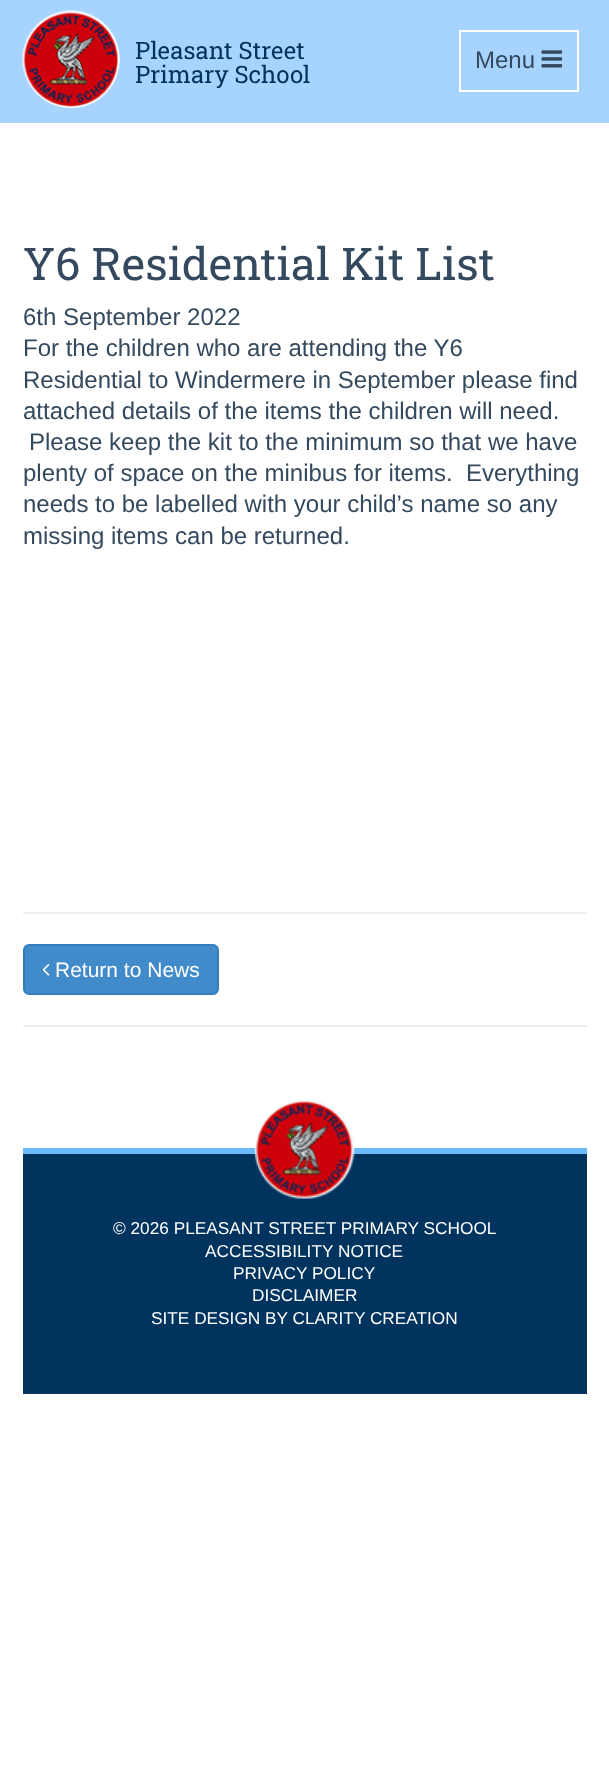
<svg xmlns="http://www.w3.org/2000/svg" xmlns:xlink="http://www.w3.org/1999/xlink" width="609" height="1771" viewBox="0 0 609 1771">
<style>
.cls-1{font:24px Roboto Slab;fill:#00335d}
.cls-2{font:24px Liberation Sans;fill:#34495e}
.cls-3{font:45px Roboto Slab;fill:#34495e}
.cls-4{font:21px Liberation Sans;fill:#ffffff}
.cls-5{font:17.25px Liberation Sans;fill:#ffffff}
</style>
<rect width="100%" height="100%" fill="#ffffff"/>
<rect fill="#a7d3ff" x="0" y="0" width="609" height="123"/>
<image xlink:href="image0.png" x="22" y="10" width="98" height="98"/>
<rect fill="none" stroke="#ffffff" stroke-width="2" x="460" y="31" width="118" height="60"/>
<image xlink:href="image1.png" x="541" y="50" width="22" height="18"/>
<rect fill="#eeeeee" x="23" y="912" width="564" height="2"/>
<rect fill="#428bca" stroke="#357ebd" stroke-width="2" x="24" y="945" width="194" height="49" rx="5"/>
<image xlink:href="image2.png" x="42" y="964" width="8" height="12"/>
<rect fill="#eeeeee" x="23" y="1025" width="564" height="2"/>
<rect fill="#00335d" x="23" y="1154" width="564" height="240"/>
<rect fill="#68bbff" x="23" y="1148" width="564" height="6"/>
<image xlink:href="image3.png" x="254" y="1099" width="101" height="100"/>
<text class="cls-1"><tspan x="135" y="59">Pleasant Street</tspan><tspan x="135" y="83">Primary School</tspan></text>
<text class="cls-2" x="475" y="68">Menu</text>
<text class="cls-3" x="23" y="280">Y6 Residential Kit List</text>
<text class="cls-2"><tspan x="23" y="325">6th September 2022</tspan><tspan x="23" y="356">For the children who are attending the Y6</tspan><tspan x="23" y="388">Residential to Windermere in September please find</tspan><tspan x="23" y="419">attached details of the items the children will need.</tspan></text>
<text class="cls-2" x="29" y="450">Please keep the kit to the minimum so that we have</text>
<text class="cls-2" xml:space="preserve"><tspan x="23" y="481">plenty of space on the minibus for items.  Everything</tspan><tspan x="23" y="512">needs to be labelled with your child’s name so any</tspan><tspan x="23" y="544">missing items can be returned.</tspan></text>
<text class="cls-4" x="55" y="977">Return to News</text>
<text class="cls-5" x="113" y="1234">© 2026 PLEASANT STREET PRIMARY SCHOOL</text>
<text class="cls-5" x="205" y="1257">ACCESSIBILITY NOTICE</text>
<text class="cls-5" x="233" y="1279">PRIVACY POLICY</text>
<text class="cls-5" x="252" y="1301">DISCLAIMER</text>
<text class="cls-5" x="151" y="1324">SITE DESIGN BY CLARITY CREATION</text>
</svg>
